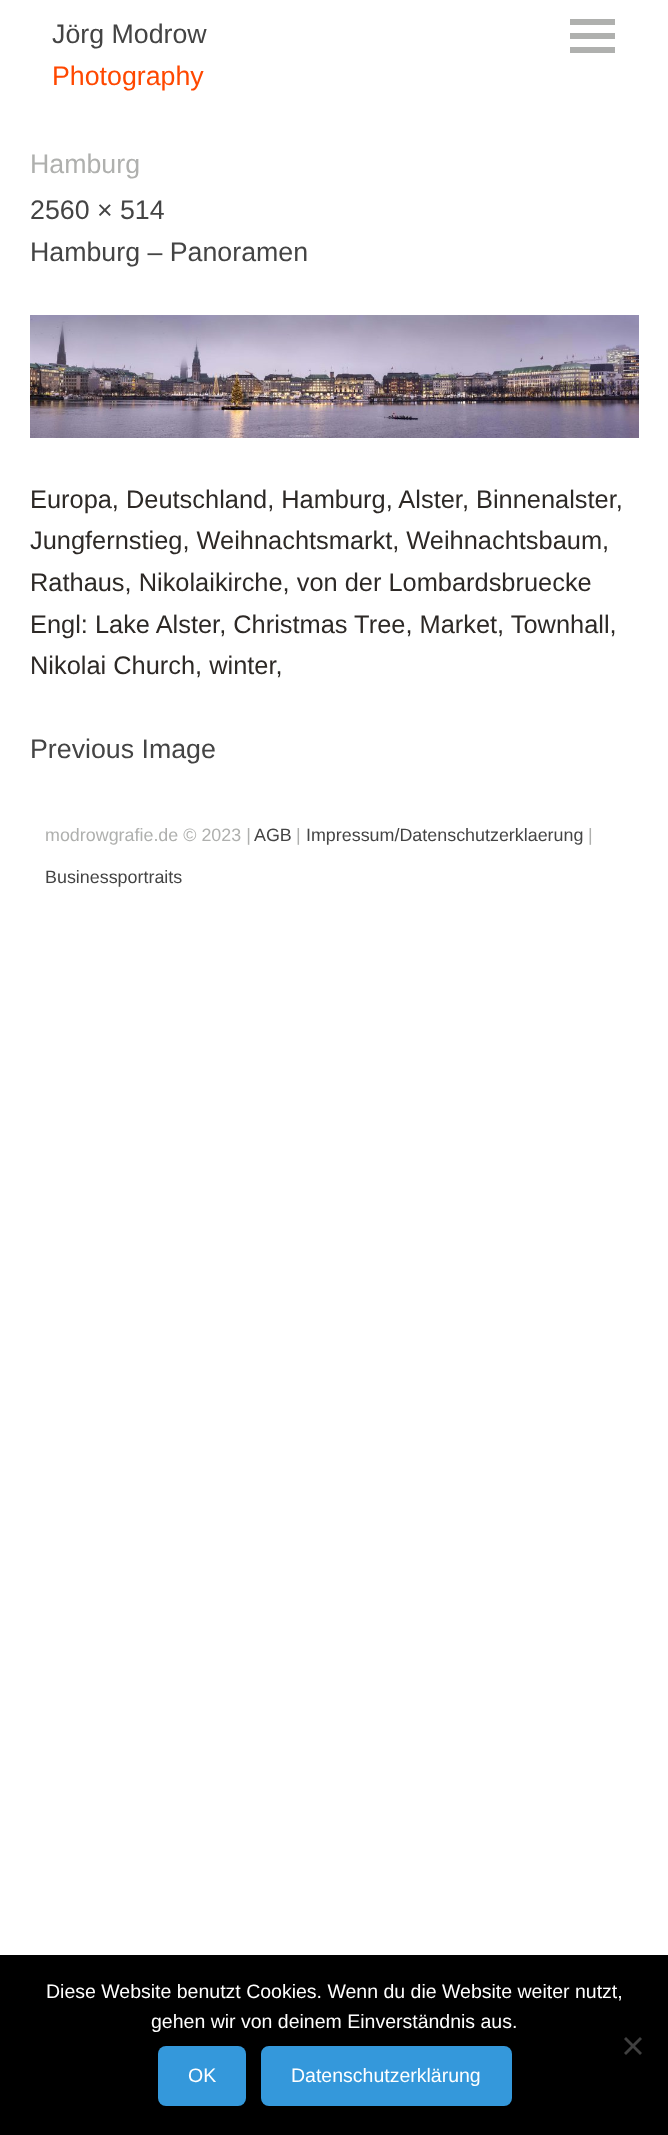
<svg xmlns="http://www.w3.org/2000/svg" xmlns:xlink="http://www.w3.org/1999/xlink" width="668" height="2135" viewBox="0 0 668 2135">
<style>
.cls-1{font:26.75px Liberation Sans;fill:#444444}
.cls-2{font:26.75px Liberation Sans;fill:#ff4800}
.cls-3{font:26.75px Liberation Sans;fill:#afb0ae}
.cls-4{font:25.4px Liberation Sans;fill:#2d2926}
.cls-5{font:17.9px Liberation Sans;fill:#afb0ae}
.cls-6{font:17.9px Liberation Sans;fill:#444444}
.cls-7{font:19.5px Liberation Sans;fill:#ffffff}
</style>
<rect width="100%" height="100%" fill="#ffffff"/>
<path fill="#afb0ae" d="M615 19V25H570V19ZM570 33H615V39H570ZM570 47H615V53H570Z"/>
<image xlink:href="image0.png" x="30" y="315" width="609" height="123"/>
<rect fill="#000000" x="0" y="1955" width="668" height="180"/>
<path fill="#404040" d="M640 2037L642 2039L626 2055L624 2053Z"/>
<path fill="#404040" d="M624 2039L626 2037L642 2053L640 2055Z"/>
<rect fill="#3498db" x="158" y="2046" width="88" height="60" rx="8"/>
<rect fill="#3498db" x="261" y="2046" width="251" height="60" rx="8"/>
<text class="cls-1" x="52" y="43">Jörg Modrow</text>
<text class="cls-2" x="52" y="85">Photography</text>
<text class="cls-3" x="30" y="173">Hamburg</text>
<text class="cls-1"><tspan x="30" y="219">2560 × 514</tspan><tspan x="30" y="261">Hamburg – Panoramen</tspan></text>
<text class="cls-4"><tspan x="30" y="508">Europa, Deutschland, Hamburg, Alster, Binnenalster,</tspan><tspan x="30" y="549">Jungfernstieg, Weihnachtsmarkt, Weihnachtsbaum,</tspan><tspan x="30" y="591">Rathaus, Nikolaikirche, von der Lombardsbruecke</tspan><tspan x="30" y="633">Engl: Lake Alster, Christmas Tree, Market, Townhall,</tspan><tspan x="30" y="674">Nikolai Church, winter,</tspan></text>
<text class="cls-1" x="30" y="758">Previous Image</text>
<text class="cls-5" x="45" y="841">modrowgrafie.de © 2023 |</text>
<text class="cls-6" x="254" y="841">AGB</text>
<text class="cls-5" x="296" y="841">|</text>
<text class="cls-6" x="306" y="841">Impressum/Datenschutzerklaerung</text>
<text class="cls-5" x="588" y="841">|</text>
<text class="cls-6" x="45" y="883">Businessportraits</text>
<text class="cls-7" x="46" y="1998">Diese Website benutzt Cookies. Wenn du die Website weiter nutzt,</text>
<text class="cls-7" x="151" y="2028">gehen wir von deinem Einverständnis aus.</text>
<text class="cls-7" x="188" y="2082">OK</text>
<text class="cls-7" x="291" y="2082">Datenschutzerklärung</text>
</svg>
